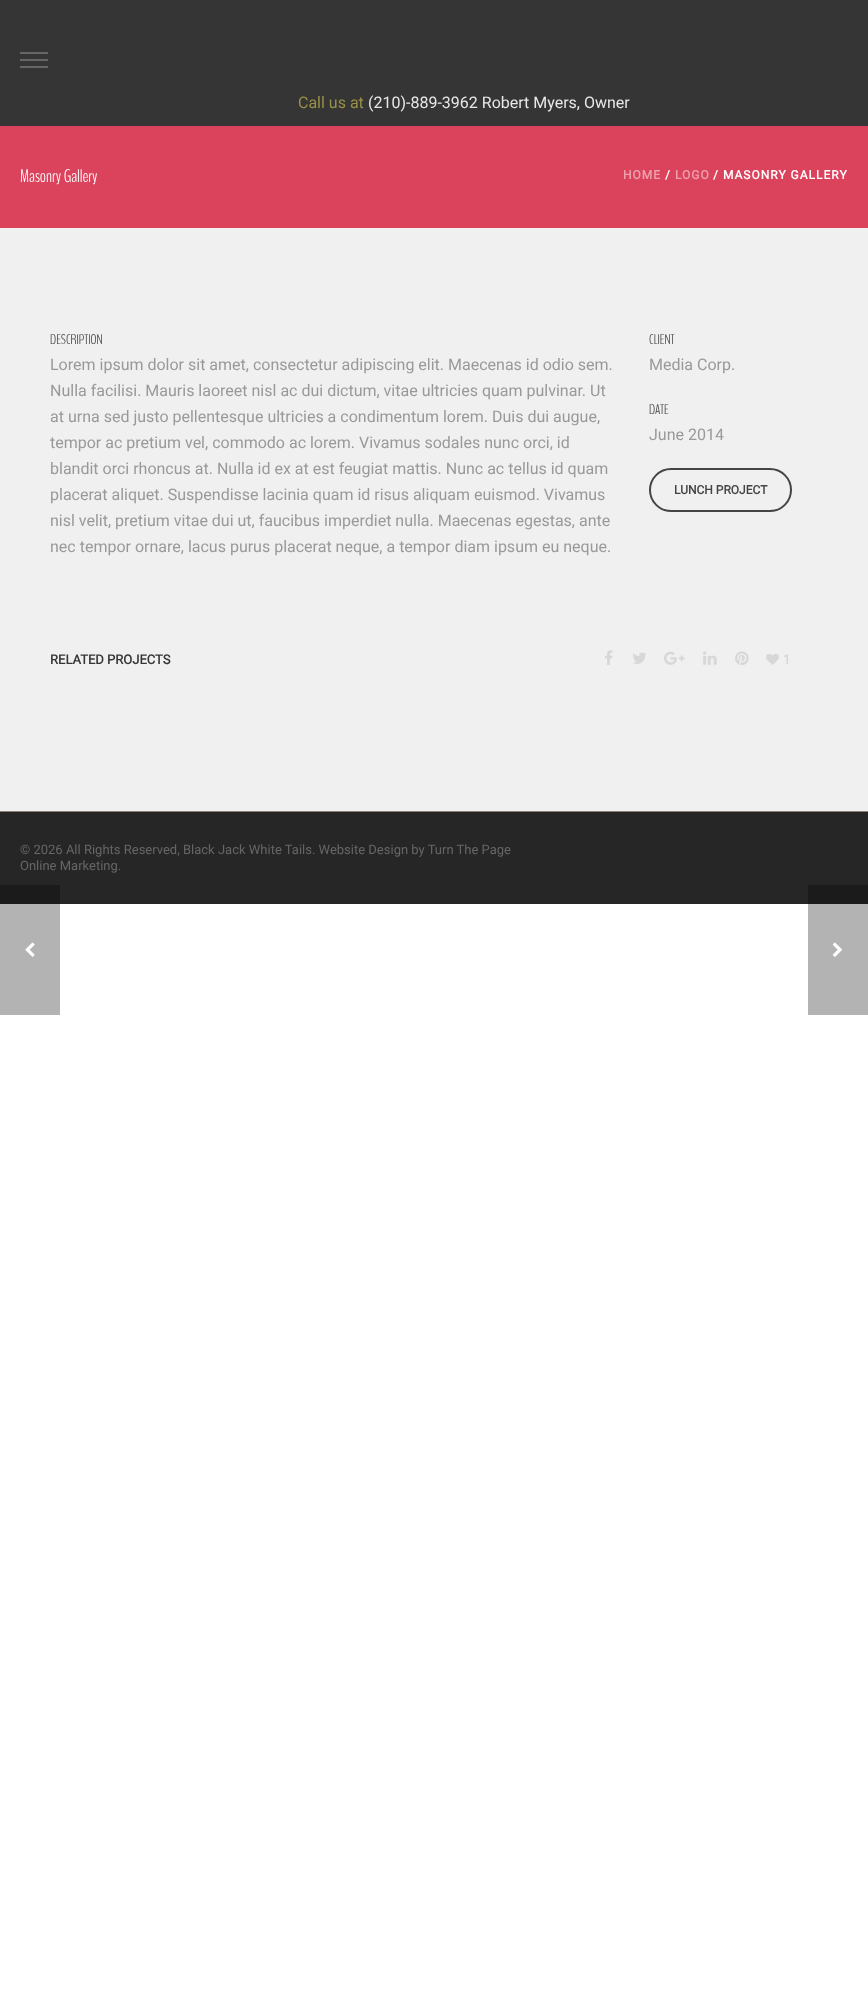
<svg xmlns="http://www.w3.org/2000/svg" xmlns:xlink="http://www.w3.org/1999/xlink" width="868" height="2000" viewBox="0 0 868 2000">
<style>
.cls-1{font:16px Roboto;fill:#9a9148}
.cls-2{font:16px Roboto;fill:#e8e8e8}
.cls-3{font:300 18px BenchNine;fill:#ffffff}
.cls-4{font:bold 12px Roboto;letter-spacing:1px;fill:#eda1ae}
.cls-5{font:bold 12px Roboto;letter-spacing:1px;fill:#ffffff}
.cls-6{font:300 14px BenchNine;fill:#444444}
.cls-7{font:16px Roboto;fill:#999999}
.cls-8{font:bold 12px Roboto;fill:#444444}
.cls-9{font:bold 13px Roboto;fill:#353535}
.cls-10{font:bold 13px Roboto;fill:#d7d7d7}
.cls-11{font:13px Roboto;fill:#666666}
</style>
<rect width="100%" height="100%" fill="#ffffff"/>
<rect fill="#b3b3b3" x="808" y="904" width="60" height="111"/>
<rect fill="#b3b3b3" x="0" y="904" width="60" height="111"/>
<rect fill="#353535" x="0" y="0" width="868" height="126"/>
<rect fill="#666666" x="20" y="52" width="28" height="2"/>
<rect fill="#666666" x="20" y="59" width="28" height="2"/>
<rect fill="#666666" x="20" y="66" width="28" height="2"/>
<rect fill="#db435d" x="0" y="126" width="868" height="102"/>
<rect fill="#f0f0f0" x="0" y="228" width="868" height="583"/>
<rect fill="none" stroke="#444444" stroke-width="2" x="650" y="469" width="141" height="42" rx="21"/>
<image xlink:href="image0.png" x="605" y="650" width="8" height="15"/>
<image xlink:href="image1.png" x="633" y="652" width="13" height="12"/>
<image xlink:href="image2.png" x="664" y="651" width="21" height="14"/>
<image xlink:href="image3.png" x="703" y="651" width="14" height="14"/>
<image xlink:href="image4.png" x="735" y="651" width="14" height="14"/>
<image xlink:href="image5.png" x="766" y="653" width="13" height="12"/>
<rect fill="#262626" x="0" y="812" width="868" height="92"/>
<rect fill="#1b1b1b" x="808" y="885" width="60" height="19"/>
<rect fill="#1b1b1b" x="0" y="885" width="60" height="19"/>
<rect fill="#8e817a" x="0" y="811" width="868" height="1"/>
<image xlink:href="image6.png" x="25" y="942" width="10" height="15"/>
<image xlink:href="image7.png" x="832" y="942" width="10" height="15"/>
<text class="cls-1" x="298" y="108">Call us at</text>
<text class="cls-2" x="368" y="108">(210)-889-3962 Robert Myers, Owner</text>
<text class="cls-3" x="20" y="182">Masonry Gallery</text>
<text class="cls-4" x="623" y="179">HOME</text>
<text class="cls-5" x="665" y="179">/</text>
<text class="cls-4" x="675" y="179">LOGO</text>
<text class="cls-5" x="713" y="179">/ MASONRY GALLERY</text>
<text class="cls-6" x="50" y="344">DESCRIPTION</text>
<text class="cls-7"><tspan x="50" y="370">Lorem ipsum dolor sit amet, consectetur adipiscing elit. Maecenas id odio sem.</tspan><tspan x="50" y="396">Nulla facilisi. Mauris laoreet nisl ac dui dictum, vitae ultricies quam pulvinar. Ut</tspan><tspan x="50" y="422">at urna sed justo pellentesque ultricies a condimentum lorem. Duis dui augue,</tspan><tspan x="50" y="448">tempor ac pretium vel, commodo ac lorem. Vivamus sodales nunc orci, id</tspan><tspan x="50" y="474">blandit orci rhoncus at. Nulla id ex at est feugiat mattis. Nunc ac tellus id quam</tspan><tspan x="50" y="500">placerat aliquet. Suspendisse lacinia quam id risus aliquam euismod. Vivamus</tspan><tspan x="50" y="526">nisl velit, pretium vitae dui ut, faucibus imperdiet nulla. Maecenas egestas, ante</tspan><tspan x="50" y="552">nec tempor ornare, lacus purus placerat neque, a tempor diam ipsum eu neque.</tspan></text>
<text class="cls-6" x="649" y="344">CLIENT</text>
<text class="cls-7" x="649" y="370">Media Corp.</text>
<text class="cls-6" x="649" y="414">DATE</text>
<text class="cls-7" x="649" y="440">June 2014</text>
<text class="cls-8" x="674" y="494">LUNCH PROJECT</text>
<text class="cls-9" x="50" y="664">RELATED PROJECTS</text>
<text class="cls-10" x="783" y="664">1</text>
<text class="cls-11"><tspan x="20" y="854">© 2026 All Rights Reserved, Black Jack White Tails. Website Design by Turn The Page</tspan><tspan x="20" y="870">Online Marketing.</tspan></text>
</svg>
